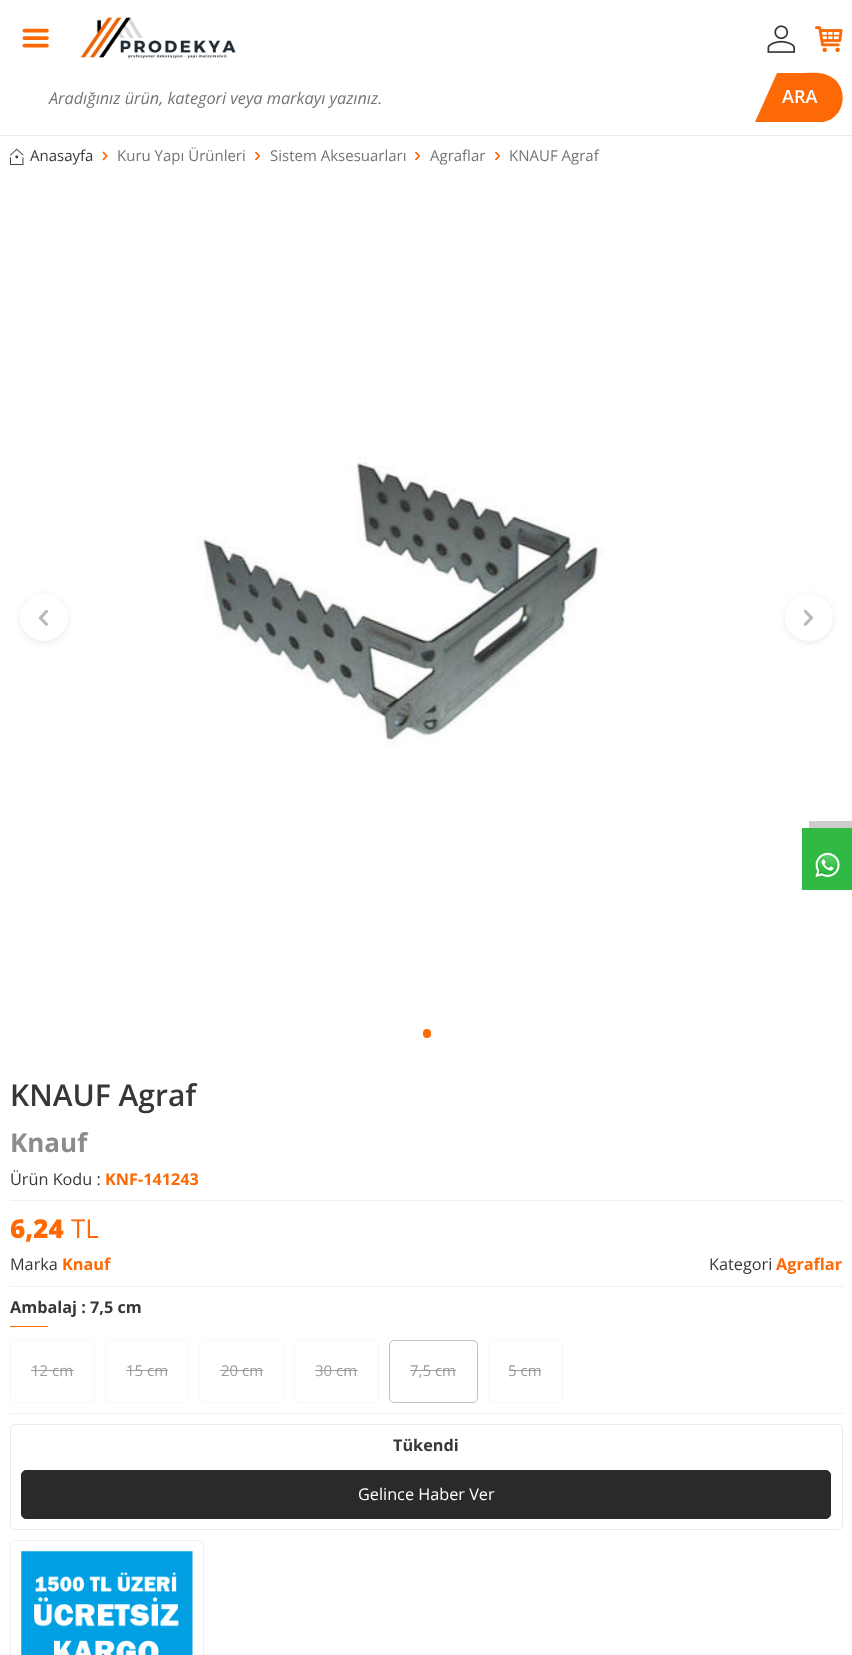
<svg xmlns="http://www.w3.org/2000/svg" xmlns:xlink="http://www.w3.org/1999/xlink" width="852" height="1655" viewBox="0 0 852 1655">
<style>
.cls-1{font:italic 16.25px Open Sans;fill:#747474}
.cls-2{font:600 18px Open Sans;fill:#ffffff}
.cls-3{font:15px Open Sans;fill:#373738}
.cls-4{font:15px Open Sans;fill:#747474}
.cls-5{font:600 30px Open Sans;fill:#373738}
.cls-6{font:bold 26px Open Sans;fill:#8c8c8c}
.cls-7{font:16.25px Open Sans;fill:#373738}
.cls-8{font:bold 16.25px Open Sans;fill:#fd6905}
.cls-9{font:800 26px Open Sans;fill:#fd6905}
.cls-10{font:26px Open Sans;fill:#fd6905}
.cls-11{font:bold 16.25px Open Sans;fill:#373738}
.cls-12{font:15px Open Sans;fill:#9b9b9b}
.cls-13{font:16.25px Open Sans;fill:#ffffff}
</style>
<rect width="100%" height="100%" fill="#ffffff"/>
<rect fill="#eaeaea" x="0" y="135" width="852" height="1"/>
<image xlink:href="image0.png" x="22" y="28" width="27" height="20"/>
<image xlink:href="image1.png" x="80" y="17" width="156" height="42"/>
<image xlink:href="image2.png" x="767" y="25" width="28" height="28"/>
<image xlink:href="image3.png" x="815" y="26" width="28" height="26"/>
<path fill="#fd6905" d="M823 122H755L777 73H804C812 73 820 72 827 75C850 83 847 118 823 122Z"/>
<image xlink:href="image4.png" x="10" y="148" width="14" height="17"/>
<image xlink:href="image5.png" x="102" y="151" width="6" height="10"/>
<image xlink:href="image6.png" x="255" y="151" width="5" height="10"/>
<image xlink:href="image6.png" x="415" y="151" width="5" height="10"/>
<image xlink:href="image6.png" x="495" y="151" width="5" height="10"/>
<rect fill="#a6a6a6" fill-opacity="0.24" filter="blur(3px)" x="20" y="595" width="48" height="48" rx="24"/>
<rect fill="#ffffff" x="20" y="594" width="48" height="47" rx="23.5"/>
<image xlink:href="image7.png" x="38" y="609" width="11" height="17"/>
<image xlink:href="image8.png" x="198" y="456" width="408" height="290"/>
<rect fill="#a6a6a6" fill-opacity="0.24" filter="blur(3px)" x="785" y="595" width="48" height="48" rx="24"/>
<rect fill="#ffffff" x="785" y="594" width="48" height="47" rx="23.5"/>
<image xlink:href="image9.png" x="803" y="609" width="10" height="17"/>
<rect fill="#fd6905" x="423" y="1029" width="8" height="9" rx="4"/>
<rect fill="#f0f0f0" x="10" y="1200" width="833" height="1"/>
<rect fill="#f0f0f0" x="10" y="1286" width="833" height="1"/>
<rect fill="#f0f0f0" x="10" y="1413" width="833" height="1"/>
<rect fill="#fd6905" x="10" y="1326" width="38" height="1"/>
<rect fill="none" stroke="#f8f8f8" x="10.5" y="1340.5" width="84" height="62" rx="4.5"/>
<rect fill="#9b9b9b" x="31" y="1370" width="43" height="1"/>
<rect fill="none" stroke="#f8f8f8" x="105.5" y="1340.5" width="83" height="62" rx="4.5"/>
<rect fill="#9b9b9b" x="126" y="1370" width="42" height="1"/>
<rect fill="none" stroke="#f8f8f8" x="199.5" y="1340.5" width="84" height="62" rx="4.5"/>
<rect fill="#9b9b9b" x="220" y="1370" width="43" height="1"/>
<rect fill="none" stroke="#f8f8f8" x="294.5" y="1340.5" width="84" height="62" rx="4.5"/>
<rect fill="#9b9b9b" x="315" y="1370" width="43" height="1"/>
<rect fill="none" stroke="#c0c0c0" x="389.5" y="1340.5" width="88" height="62" rx="4.5"/>
<rect fill="#9b9b9b" x="410" y="1370" width="46" height="1"/>
<rect fill="none" stroke="#f8f8f8" x="488.5" y="1340.5" width="74" height="62" rx="4.5"/>
<rect fill="#9b9b9b" x="509" y="1370" width="32" height="1"/>
<rect fill="none" stroke="#eaeaea" x="10.5" y="1424.5" width="832" height="105" rx="4.5"/>
<rect fill="#2c2a28" stroke="#2c2a28" x="21.5" y="1470.5" width="809" height="48" rx="4.5"/>
<rect fill="none" stroke="#f0f0f0" x="10.5" y="1540.5" width="193" height="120" rx="4.5"/>
<image xlink:href="image10.png" x="21" y="1551" width="172" height="104"/>
<path fill="#cccccc" d="M809 821V828H852V884H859V821Z"/>
<rect fill="#30ba45" x="802" y="828" width="50" height="62"/>
<image xlink:href="image11.png" x="815" y="852" width="25" height="26"/>
<text class="cls-1" x="49" y="104">Aradığınız ürün, kategori veya markayı yazınız.</text>
<text class="cls-2" x="782" y="103">ARA</text>
<text class="cls-3" x="30" y="161">Anasayfa</text>
<text class="cls-4" x="117" y="161">Kuru Yapı Ürünleri</text>
<text class="cls-4" x="270" y="161">Sistem Aksesuarları</text>
<text class="cls-4" x="430" y="161">Agraflar</text>
<text class="cls-4" x="509" y="161">KNAUF Agraf</text>
<text class="cls-5" x="10" y="1106">KNAUF Agraf</text>
<text class="cls-6" x="10" y="1152">Knauf</text>
<text class="cls-7" x="10" y="1185">Ürün Kodu :</text>
<text class="cls-8" x="105" y="1185">KNF-141243</text>
<text class="cls-9" x="10" y="1238">6,24</text>
<text class="cls-10" x="71" y="1238">TL</text>
<text class="cls-7" x="10" y="1270">Marka</text>
<text class="cls-8" x="62" y="1270">Knauf</text>
<text class="cls-7" x="709" y="1270">Kategori</text>
<text class="cls-8" x="776" y="1270">Agraflar</text>
<text class="cls-11" x="10" y="1313">Ambalaj : 7,5 cm</text>
<text class="cls-12" x="31" y="1376">12 cm</text>
<text class="cls-12" x="126" y="1376">15 cm</text>
<text class="cls-12" x="221" y="1376">20 cm</text>
<text class="cls-12" x="315" y="1376">30 cm</text>
<text class="cls-12" x="410" y="1376">7,5 cm</text>
<text class="cls-12" x="508" y="1376">5 cm</text>
<text class="cls-11" x="393" y="1451">Tükendi</text>
<text class="cls-13" x="358" y="1500">Gelince Haber Ver</text>
</svg>
